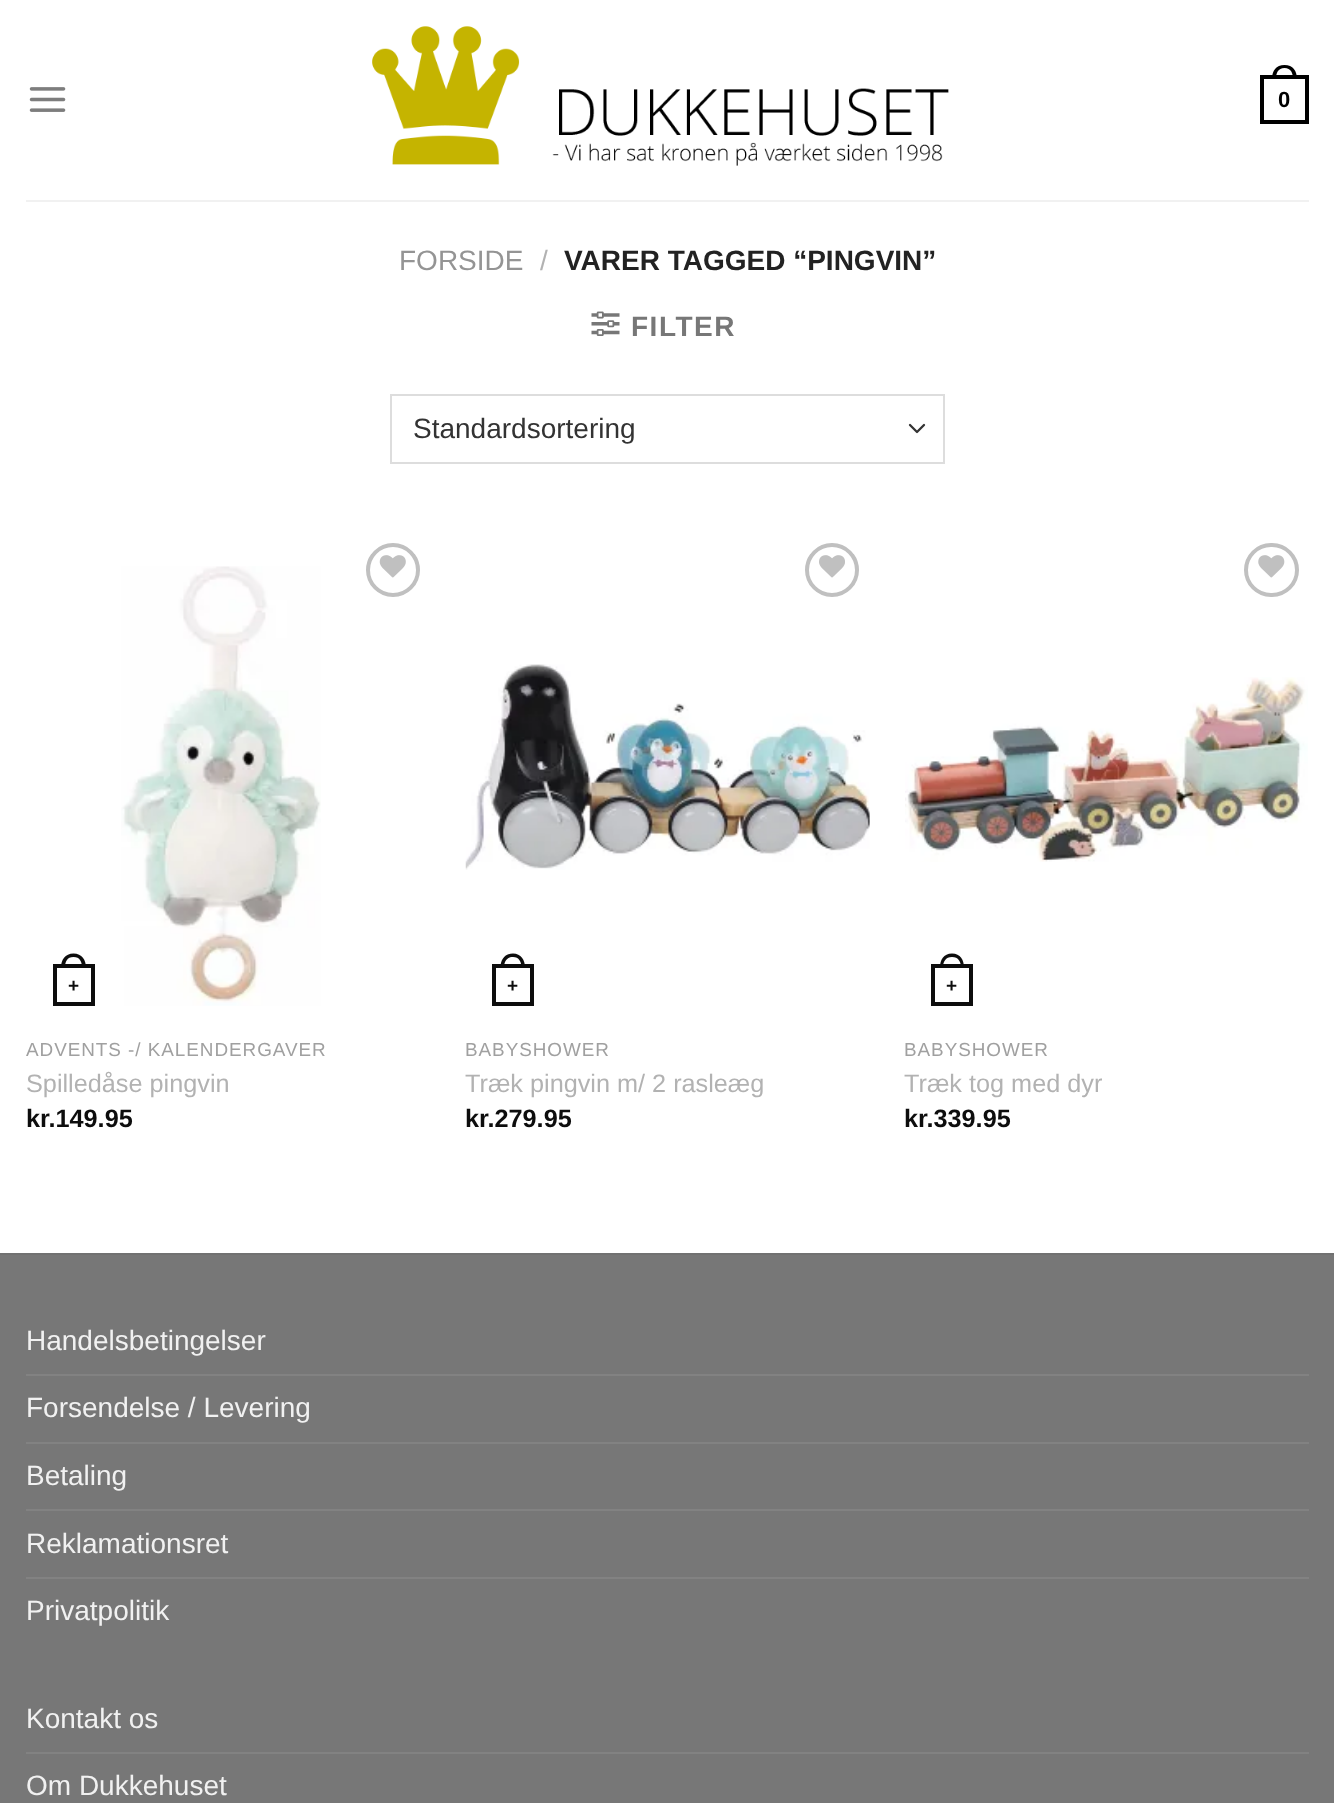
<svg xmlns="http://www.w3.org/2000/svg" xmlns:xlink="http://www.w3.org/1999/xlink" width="1334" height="1803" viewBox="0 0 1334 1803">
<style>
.cls-1{font:bold 22px Liberation Sans;fill:#000000}
.cls-2{font:28px Liberation Sans;fill:#949494}
.cls-3{font:28px Liberation Sans;fill:#b2b2b2}
.cls-4{font:bold 28px Liberation Sans;fill:#222222}
.cls-5{font:bold 28px Liberation Sans;letter-spacing:1.5px;fill:#777777}
.cls-6{font:28px Liberation Sans;fill:#333333}
.cls-7{font:bold 19px Liberation Sans;fill:#0d0d0d}
.cls-8{font:18.9px Liberation Sans;letter-spacing:0.95px;fill:#a0a0a0}
.cls-9{font:25.25px Liberation Sans;fill:#b2b2b2}
.cls-10{font:bold 25.25px Liberation Sans;fill:#0d0d0d}
.cls-11{font:28px Liberation Sans;fill:#f1f1f1}
</style>
<rect width="100%" height="100%" fill="#ffffff"/>
<image xlink:href="image0.png" x="29" y="87" width="37" height="25"/>
<image xlink:href="image1.png" x="372" y="26" width="577" height="140"/>
<rect fill="none" stroke="#000000" stroke-width="4" x="1262" y="77" width="45" height="45"/>
<path fill="#000000" fill-rule="evenodd" d="M1284.5 65C1293 65 1297 71 1297 79H1272C1272 71 1276 65 1284.5 65ZM1284.5 68C1291 68 1293 73 1293 79H1276C1276 73 1278 68 1284.5 68Z"/>
<rect fill="#f1f1f1" x="26" y="200" width="1283" height="2"/>
<image xlink:href="image2.png" x="591" y="311" width="29" height="25"/>
<path fill="none" stroke="#333333" stroke-width="2.3" stroke-linecap="round" stroke-linejoin="round" d="M910 425L917 432L924 425"/>
<rect fill="none" stroke="#dddddd" stroke-width="2" x="391" y="395" width="553" height="68"/>
<rect fill="none" stroke="#0d0d0d" stroke-width="4" x="55" y="966" width="38" height="38"/>
<path fill="#0d0d0d" fill-rule="evenodd" d="M73.5 953.5C82 953.5 86 960 86 967.5H61C61 960 65 953.5 73.5 953.5ZM73.5 957C80 957 82 962 82 967.5H65C65 962 67 957 73.5 957Z"/>
<image xlink:href="image3.png" x="121" y="566" width="200" height="440"/>
<circle fill="none" stroke="#c0c0c0" stroke-width="4" cx="393" cy="570" r="25"/>
<image xlink:href="image4.png" x="379" y="555" width="27" height="23"/>
<circle fill="none" stroke="#c0c0c0" stroke-width="4" cx="832" cy="570" r="25"/>
<image xlink:href="image5.png" x="819" y="555" width="26" height="23"/>
<image xlink:href="image6.png" x="465" y="664" width="405" height="206"/>
<rect fill="none" stroke="#0d0d0d" stroke-width="4" x="494" y="966" width="38" height="38"/>
<path fill="#0d0d0d" fill-rule="evenodd" d="M513 953.5C521 953.5 525 960 525 967.5H500.5C500.5 960 504.5 953.5 513 953.5ZM513 957C519 957 521.5 962 521.5 967.5H504C504 962 506.5 957 513 957Z"/>
<rect fill="none" stroke="#c0c0c0" stroke-width="4" x="1246" y="545" width="51" height="50" rx="25"/>
<image xlink:href="image7.png" x="1258" y="555" width="27" height="23"/>
<image xlink:href="image8.png" x="905" y="677" width="403" height="185"/>
<rect fill="none" stroke="#0d0d0d" stroke-width="4" x="933" y="966" width="38" height="38"/>
<path fill="#0d0d0d" fill-rule="evenodd" d="M952 953.5C960.5 953.5 964 960 964 967.5H940C940 960 943.5 953.5 952 953.5ZM952 957C958.5 957 961 962 961 967.5H943C943 962 945.5 957 952 957Z"/>
<rect fill="#777777" x="0" y="1255" width="1334" height="548"/>
<rect fill="#717171" x="0" y="1253" width="1334" height="2"/>
<rect fill="#828282" x="26" y="1374" width="1283" height="2"/>
<rect fill="#828282" x="26" y="1442" width="1283" height="2"/>
<rect fill="#828282" x="26" y="1509" width="1283" height="2"/>
<rect fill="#828282" x="26" y="1577" width="1283" height="2"/>
<rect fill="#828282" x="26" y="1752" width="1283" height="2"/>
<text class="cls-1" x="1278" y="107">0</text>
<text class="cls-2" x="399" y="270">FORSIDE</text>
<text class="cls-3" x="540" y="270">/</text>
<text class="cls-4" x="564" y="270">VARER TAGGED “PINGVIN”</text>
<text class="cls-5" x="631" y="336">FILTER</text>
<text class="cls-6" x="413" y="438">Standardsortering</text>
<text class="cls-7" x="68" y="992">+</text>
<text class="cls-8" x="26" y="1056">ADVENTS -/ KALENDERGAVER</text>
<text class="cls-9" x="26" y="1092">Spilledåse pingvin</text>
<text class="cls-10" x="26" y="1127">kr.149.95</text>
<text class="cls-7" x="507" y="992">+</text>
<text class="cls-8" x="465" y="1056">BABYSHOWER</text>
<text class="cls-9" x="465" y="1092">Træk pingvin m/ 2 rasleæg</text>
<text class="cls-10" x="465" y="1127">kr.279.95</text>
<text class="cls-7" x="946" y="992">+</text>
<text class="cls-8" x="904" y="1056">BABYSHOWER</text>
<text class="cls-9" x="904" y="1092">Træk tog med dyr</text>
<text class="cls-10" x="904" y="1127">kr.339.95</text>
<text class="cls-11" x="26" y="1350">Handelsbetingelser</text>
<text class="cls-11" x="26" y="1417">Forsendelse / Levering</text>
<text class="cls-11" x="26" y="1485">Betaling</text>
<text class="cls-11" x="26" y="1553">Reklamationsret</text>
<text class="cls-11" x="26" y="1620">Privatpolitik</text>
<text class="cls-11" x="26" y="1728">Kontakt os</text>
<text class="cls-11" x="26" y="1795">Om Dukkehuset</text>
</svg>
